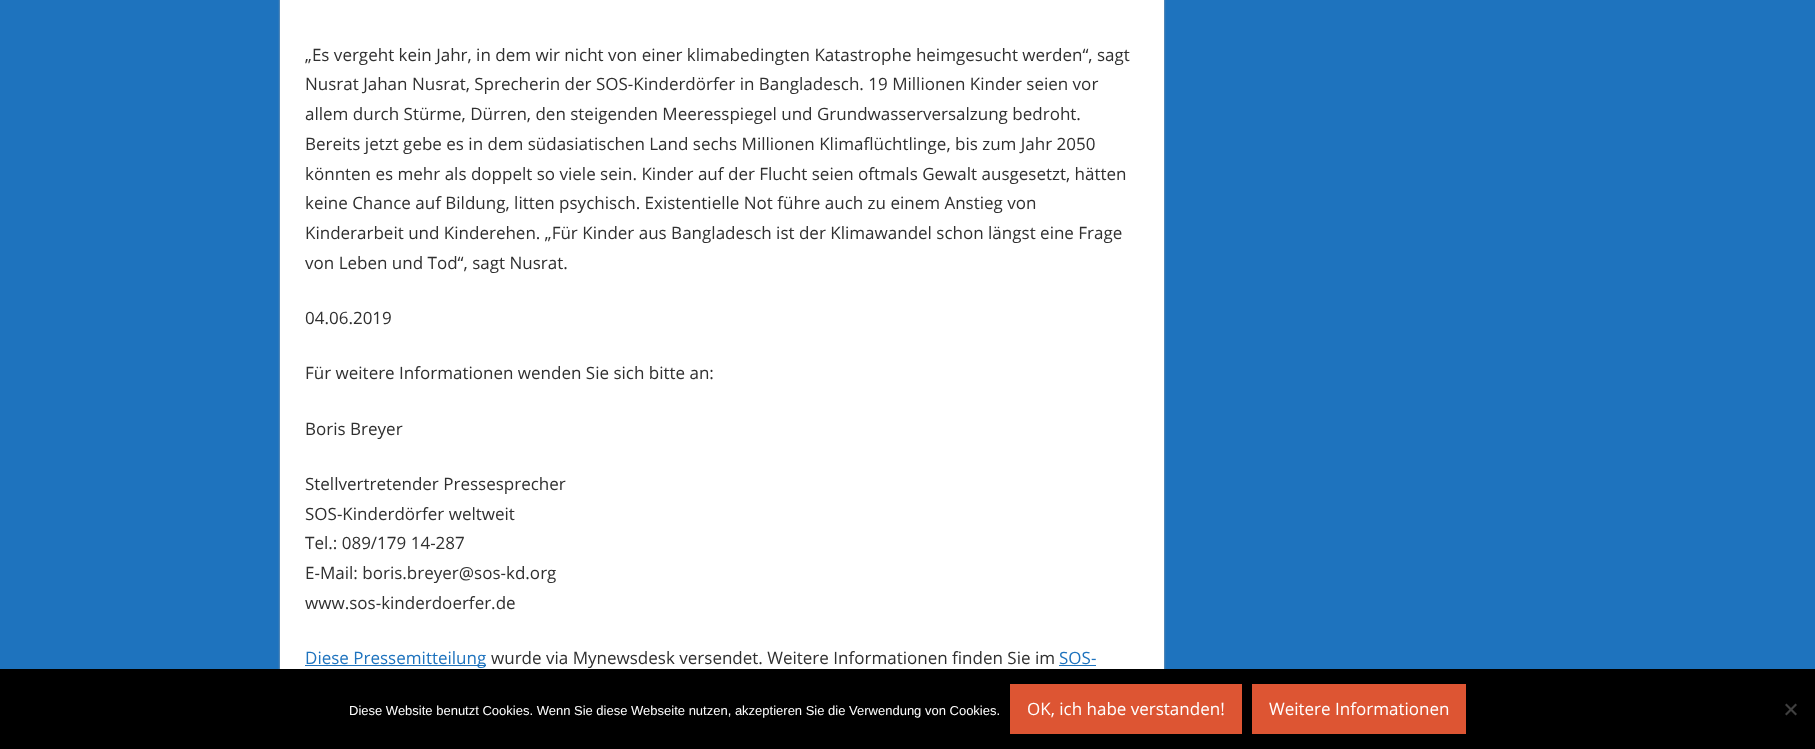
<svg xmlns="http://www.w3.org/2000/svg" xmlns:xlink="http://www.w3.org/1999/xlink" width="1815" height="749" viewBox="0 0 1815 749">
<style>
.cls-1{font:17px Open Sans;fill:#303030}
.cls-2{font:17px Open Sans;fill:#1e73be}
.cls-3{font:13px Liberation Sans;fill:#ffffff}
.cls-4{font:17px Open Sans;fill:#ffffff}
</style>
<rect width="100%" height="100%" fill="#1e73be"/>
<rect fill="#aaaaaa" filter="blur(1px)" x="280" y="-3" width="884" height="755"/>
<rect fill="#ffffff" x="280" y="0" width="884" height="669"/>
<rect fill="#1e73be" x="305" y="665" width="181" height="1"/>
<rect fill="#1e73be" x="1059" y="665" width="37" height="1"/>
<rect fill="#000000" x="0" y="669" width="1815" height="80"/>
<rect fill="#dd5533" x="1010" y="684" width="232" height="50"/>
<rect fill="#dd5533" x="1252" y="684" width="214" height="50"/>
<path fill="#404040" d="M1795.5 703.5L1797 705L1786.5 715.5L1785 714Z"/>
<path fill="#404040" d="M1785 705L1786.5 703.5L1797 714L1795.5 715.5Z"/>
<text class="cls-1"><tspan x="305" y="61">„Es vergeht kein Jahr, in dem wir nicht von einer klimabedingten Katastrophe heimgesucht werden“, sagt</tspan><tspan x="305" y="90">Nusrat Jahan Nusrat, Sprecherin der SOS-Kinderdörfer in Bangladesch. 19 Millionen Kinder seien vor</tspan><tspan x="305" y="120">allem durch Stürme, Dürren, den steigenden Meeresspiegel und Grundwasserversalzung bedroht.</tspan><tspan x="305" y="150">Bereits jetzt gebe es in dem südasiatischen Land sechs Millionen Klimaflüchtlinge, bis zum Jahr 2050</tspan><tspan x="305" y="180">könnten es mehr als doppelt so viele sein. Kinder auf der Flucht seien oftmals Gewalt ausgesetzt, hätten</tspan><tspan x="305" y="209">keine Chance auf Bildung, litten psychisch. Existentielle Not führe auch zu einem Anstieg von</tspan><tspan x="305" y="239">Kinderarbeit und Kinderehen. „Für Kinder aus Bangladesch ist der Klimawandel schon längst eine Frage</tspan><tspan x="305" y="269">von Leben und Tod“, sagt Nusrat.</tspan></text>
<text class="cls-1" x="305" y="324">04.06.2019</text>
<text class="cls-1" x="305" y="379">Für weitere Informationen wenden Sie sich bitte an:</text>
<text class="cls-1" x="305" y="435">Boris Breyer</text>
<text class="cls-1"><tspan x="305" y="490">Stellvertretender Pressesprecher</tspan><tspan x="305" y="520">SOS-Kinderdörfer weltweit</tspan><tspan x="305" y="549">Tel.: 089/179 14-287</tspan><tspan x="305" y="579">E-Mail: boris.breyer@sos-kd.org</tspan><tspan x="305" y="609">www.sos-kinderdoerfer.de</tspan></text>
<text class="cls-2" x="305" y="664">Diese Pressemitteilung</text>
<text class="cls-1" x="491" y="664">wurde via Mynewsdesk versendet. Weitere Informationen finden Sie im</text>
<text class="cls-2" x="1059" y="664">SOS-</text>
<text class="cls-3" x="349" y="715">Diese Website benutzt Cookies. Wenn Sie diese Webseite nutzen, akzeptieren Sie die Verwendung von Cookies.</text>
<text class="cls-4" x="1027" y="715">OK, ich habe verstanden!</text>
<text class="cls-4" x="1269" y="715">Weitere Informationen</text>
</svg>
